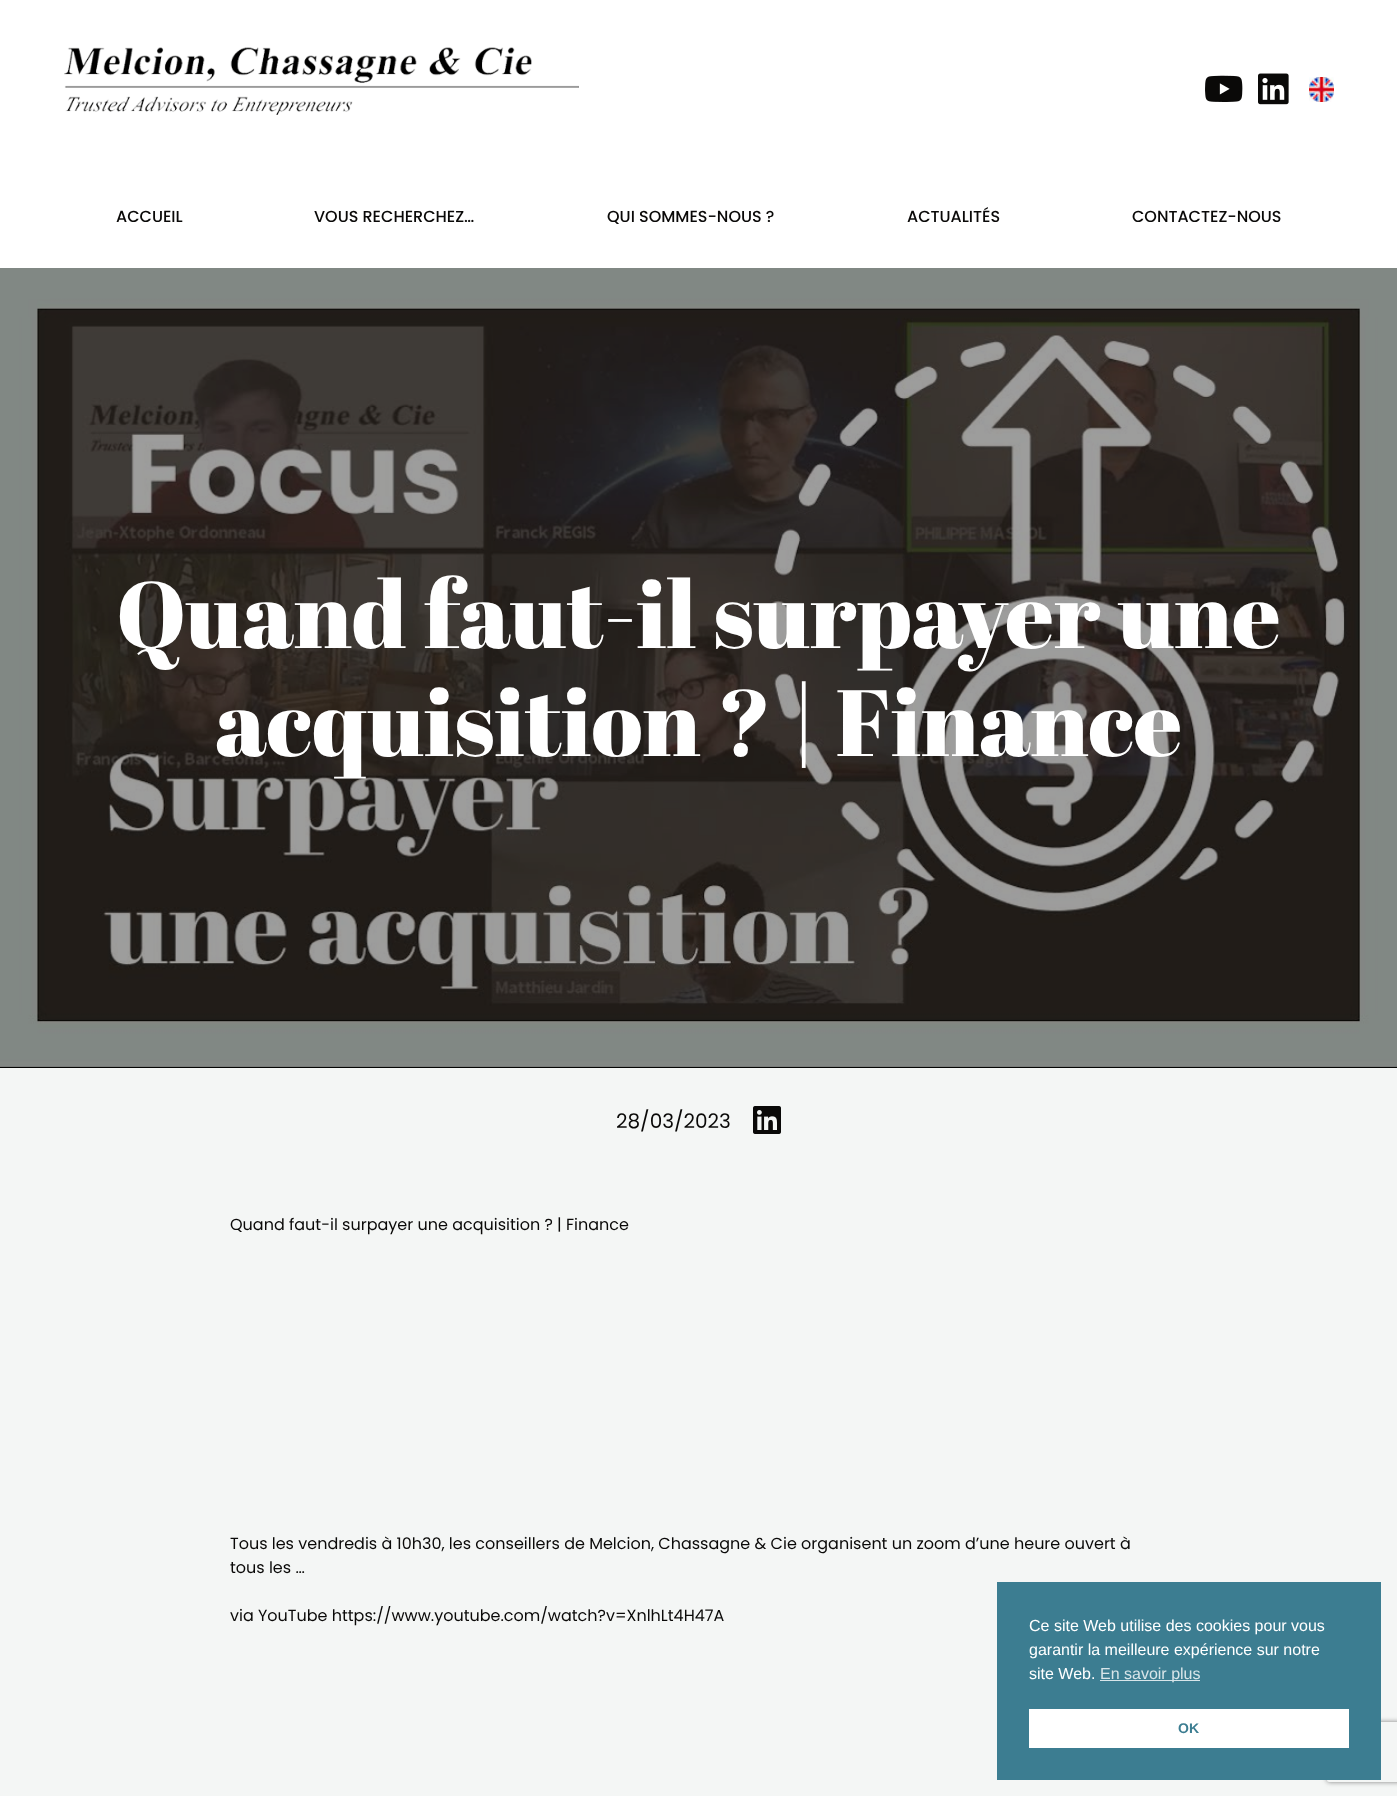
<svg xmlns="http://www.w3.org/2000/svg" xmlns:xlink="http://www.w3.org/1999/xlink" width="1397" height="1796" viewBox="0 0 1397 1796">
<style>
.cls-1{font:500 16px Poppins;fill:#0a0908}
.cls-2{font:94px Abril Fatface;fill:#ffffff}
.cls-3{font:20px Poppins;fill:#0a0908}
.cls-4{font:16px Poppins;fill:#0a0908}
.cls-5{font:16px Liberation Sans;fill:#ffffff}
.cls-6{font:16px Liberation Sans;fill:#d8e5e9}
.cls-7{font:bold 14px Liberation Sans;fill:#3c7d91}
</style>
<defs>
<clipPath id="clip1"><path d="M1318 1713H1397V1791H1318ZM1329 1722H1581C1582 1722 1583 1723 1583 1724V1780C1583 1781 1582 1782 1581 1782H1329C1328 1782 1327 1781 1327 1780V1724C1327 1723 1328 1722 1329 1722Z" clip-rule="evenodd"/></clipPath>
</defs>
<rect width="100%" height="100%" fill="#f4f6f5"/>
<rect fill="#ffffff" x="0" y="0" width="1397" height="268"/>
<image xlink:href="image0.png" x="64" y="47" width="515" height="68"/>
<image xlink:href="image1.png" x="1205" y="75" width="38" height="27"/>
<image xlink:href="image2.png" x="1258" y="73" width="31" height="32"/>
<image xlink:href="image3.png" x="1309" y="77" width="25" height="25"/>
<image xlink:href="image4.png" x="0" y="268" width="1397" height="800"/>
<image xlink:href="image5.png" x="753" y="1106" width="28" height="28"/>
<g clip-path="url(#clip1)">
<rect fill="#808080" filter="blur(2.5px)" x="1327" y="1722" width="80" height="60" rx="2"/>
</g>
<rect fill="#3c7d91" x="997" y="1582" width="384" height="198"/>
<rect fill="#d8e5e9" x="1100" y="1680" width="100" height="1"/>
<rect fill="#ffffff" x="1029" y="1709" width="320" height="39"/>
<text class="cls-1" x="116" y="222">ACCUEIL</text>
<text class="cls-1" x="314" y="222">VOUS RECHERCHEZ…</text>
<text class="cls-1" x="607" y="222">QUI SOMMES-NOUS ?</text>
<text class="cls-1" x="907" y="222">ACTUALITÉS</text>
<text class="cls-1" x="1132" y="222">CONTACTEZ-NOUS</text>
<text class="cls-2" x="116" y="648">Quand faut-il surpayer une</text>
<text class="cls-2" x="215" y="756">acquisition ? | Finance</text>
<text class="cls-3" x="616" y="1128">28/03/2023</text>
<text class="cls-4" x="230" y="1230">Quand faut-il surpayer une acquisition ? | Finance</text>
<text class="cls-4"><tspan x="230" y="1549">Tous les vendredis à 10h30, les conseillers de Melcion, Chassagne &amp; Cie organisent un zoom d’une heure ouvert à</tspan><tspan x="230" y="1573">tous les …</tspan></text>
<text class="cls-4" x="230" y="1621">via YouTube https://www.youtube.com/watch?v=XnlhLt4H47A</text>
<text class="cls-5"><tspan x="1029" y="1631">Ce site Web utilise des cookies pour vous</tspan><tspan x="1029" y="1655">garantir la meilleure expérience sur notre</tspan><tspan x="1029" y="1679">site Web.</tspan></text>
<text class="cls-6" x="1100" y="1679">En savoir plus</text>
<text class="cls-7" x="1178" y="1733">OK</text>
</svg>
